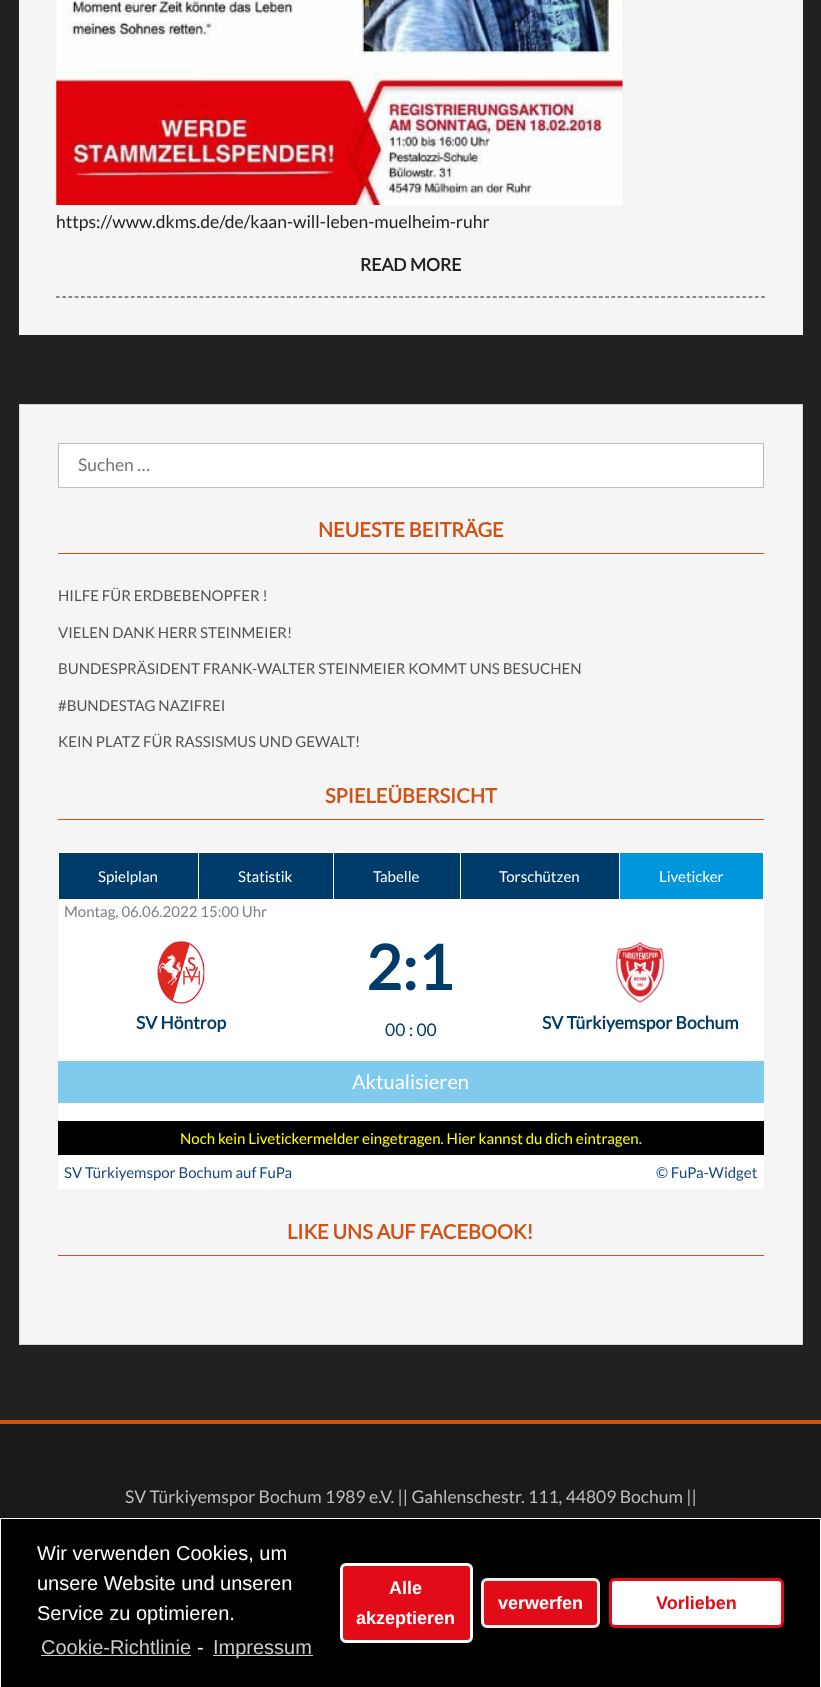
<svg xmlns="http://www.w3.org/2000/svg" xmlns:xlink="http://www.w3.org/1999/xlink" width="821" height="1687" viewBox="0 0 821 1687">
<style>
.cls-1{font:17.5px Lato;fill:#212121}
.cls-2{font:bold 17.5px Lato;fill:#212121}
.cls-3{font:17.5px Lato;fill:#757575}
.cls-4{font:bold 20px Lato;fill:#ce5317}
.cls-5{font:15px Lato;fill:#545454}
.cls-6{font:15px Lato;fill:#ffffff}
.cls-7{font:15px Lato;fill:#808080}
.cls-8{font:bold 17.5px Lato;fill:#003c69}
.cls-9{font:bold 62px Lato;fill:#003c69}
.cls-10{font:17.5px Lato;fill:#003c69}
.cls-11{font:20px Lato;fill:#ffffff}
.cls-12{font:15px Lato;fill:#ffff00}
.cls-13{font:15px Lato;fill:#17477f}
.cls-14{font:17.5px Lato;fill:#bdbdbd}
.cls-15{font:20px Liberation Sans;fill:#ffffff}
.cls-16{font:20px Liberation Sans;fill:#cccccc}
.cls-17{font:bold 18px Liberation Sans;fill:#ffffff}
.cls-18{font:bold 18px Liberation Sans;fill:#e10c18}
</style>
<rect width="100%" height="100%" fill="#212121"/>
<rect fill="#f5f5f5" x="19" y="0" width="784" height="335"/>
<image xlink:href="image0.png" x="56" y="0" width="568" height="205"/>
<path fill="none" stroke="#212121" stroke-width="1.2" stroke-dasharray="3.75 2.49" d="M56 297H765"/>
<rect fill="#f5f5f5" stroke="#d7d7d7" x="19.5" y="404.5" width="783" height="940"/>
<rect fill="#ffffff" stroke="#bdbdbd" x="58.5" y="443.5" width="705" height="44"/>
<rect fill="#ce5317" x="58" y="553" width="706" height="1"/>
<rect fill="#ce5317" x="58" y="819" width="706" height="1"/>
<rect fill="#ffffff" x="58" y="851" width="706" height="338"/>
<rect fill="#003c69" x="59" y="853" width="139" height="46"/>
<rect fill="#003c69" x="199" y="853" width="134" height="46"/>
<rect fill="#003c69" x="334" y="853" width="126" height="46"/>
<rect fill="#003c69" x="461" y="853" width="158" height="46"/>
<rect fill="#0096db" x="620" y="853" width="143" height="46"/>
<image xlink:href="image1.png" x="157" y="941" width="48" height="63"/>
<image xlink:href="image2.png" x="615" y="941" width="50" height="63"/>
<rect fill="#80cbed" x="58" y="1061" width="706" height="42"/>
<rect fill="#000000" x="58" y="1121" width="706" height="34"/>
<rect fill="#ce5317" x="58" y="1255" width="706" height="1"/>
<rect fill="#1a1a1a" x="0" y="1424" width="821" height="94"/>
<rect fill="#ce5317" x="0" y="1420" width="821" height="4"/>
<rect fill="#000000" stroke="#f9f9f9" x="0.5" y="1518.5" width="820" height="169"/>
<rect fill="#cccccc" x="41" y="1655" width="150" height="1"/>
<rect fill="#cccccc" x="213" y="1655" width="100" height="1"/>
<rect fill="#e10c18" stroke="#ffffff" stroke-width="3" x="341.5" y="1564.5" width="130" height="77" rx="4.5"/>
<rect fill="#e10c18" stroke="#f1f1f1" stroke-width="3" x="482.5" y="1579.5" width="116" height="47" rx="4.5"/>
<rect fill="#ffffff" stroke="#e10c18" stroke-width="3" x="610.5" y="1579.5" width="172" height="47" rx="4.5"/>
<text class="cls-1" x="56" y="228">https://www.dkms.de/de/kaan-will-leben-muelheim-ruhr</text>
<text class="cls-2" x="360" y="271">READ MORE</text>
<text class="cls-3" x="78" y="471">Suchen …</text>
<text class="cls-4" x="318" y="537">NEUESTE BEITRÄGE</text>
<text class="cls-5" x="58" y="601">HILFE FÜR ERDBEBENOPFER !</text>
<text class="cls-5" x="58" y="638">VIELEN DANK HERR STEINMEIER!</text>
<text class="cls-5" x="58" y="674">BUNDESPRÄSIDENT FRANK-WALTER STEINMEIER KOMMT UNS BESUCHEN</text>
<text class="cls-5" x="58" y="711">#BUNDESTAG NAZIFREI</text>
<text class="cls-5" x="58" y="747">KEIN PLATZ FÜR RASSISMUS UND GEWALT!</text>
<text class="cls-4" x="325" y="803">SPIELEÜBERSICHT</text>
<text class="cls-6" x="98" y="882">Spielplan</text>
<text class="cls-6" x="238" y="882">Statistik</text>
<text class="cls-6" x="373" y="882">Tabelle</text>
<text class="cls-6" x="499" y="882">Torschützen</text>
<text class="cls-6" x="659" y="882">Liveticker</text>
<text class="cls-7" x="64" y="917">Montag, 06.06.2022 15:00 Uhr</text>
<text class="cls-8" x="136" y="1029">SV Höntrop</text>
<text class="cls-9" x="366" y="990">2:1</text>
<text class="cls-10" x="385" y="1036">00 : 00</text>
<text class="cls-8" x="542" y="1029">SV Türkiyemspor Bochum</text>
<text class="cls-11" x="352" y="1089">Aktualisieren</text>
<text class="cls-12" x="180" y="1144">Noch kein Livetickermelder eingetragen. Hier kannst du dich eintragen.</text>
<text class="cls-13" x="64" y="1178">SV Türkiyemspor Bochum auf FuPa</text>
<text class="cls-13" x="656" y="1178">© FuPa-Widget</text>
<text class="cls-4" x="287" y="1239">LIKE UNS AUF FACEBOOK!</text>
<text class="cls-14" x="125" y="1503">SV Türkiyemspor Bochum 1989 e.V. || Gahlenschestr. 111, 44809 Bochum ||</text>
<text class="cls-15"><tspan x="37" y="1560">Wir verwenden Cookies, um</tspan><tspan x="37" y="1590">unsere Website und unseren</tspan><tspan x="37" y="1620">Service zu optimieren.</tspan></text>
<text class="cls-16" x="41" y="1654">Cookie-Richtlinie</text>
<text class="cls-15" x="197" y="1654">-</text>
<text class="cls-16" x="213" y="1654">Impressum</text>
<text class="cls-17" x="389" y="1594">Alle</text>
<text class="cls-17" x="356" y="1624">akzeptieren</text>
<text class="cls-17" x="498" y="1609">verwerfen</text>
<text class="cls-18" x="656" y="1609">Vorlieben</text>
</svg>
